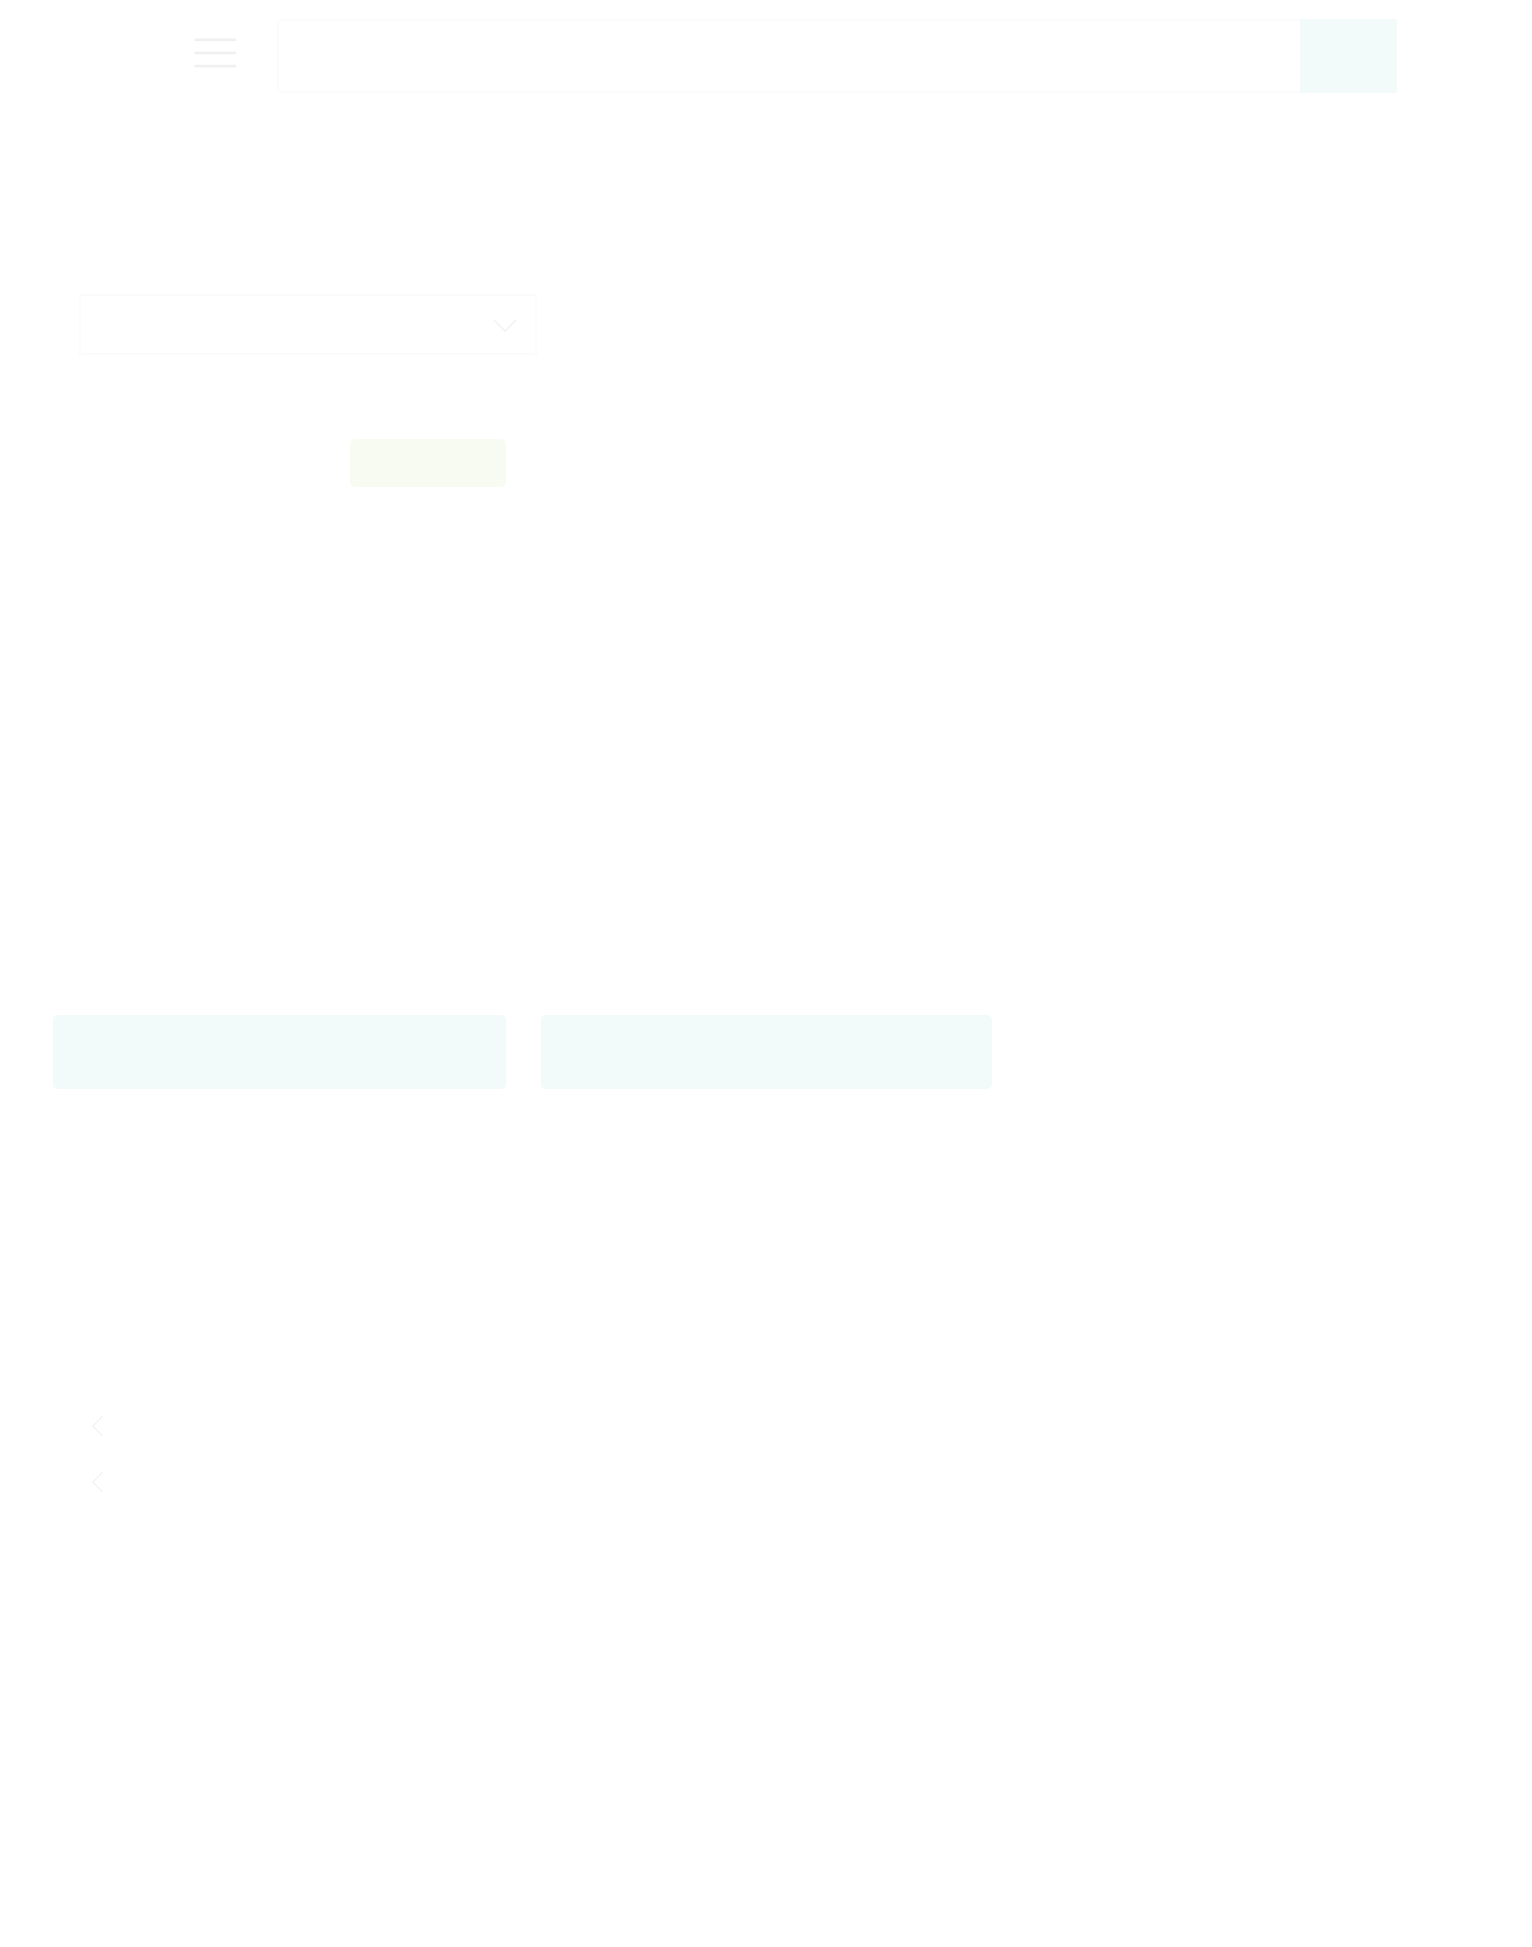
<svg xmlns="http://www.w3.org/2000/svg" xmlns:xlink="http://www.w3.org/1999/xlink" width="1532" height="1947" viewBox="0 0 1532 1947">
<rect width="100%" height="100%" fill="#ffffff"/>
<image xlink:href="image0.png" x="194" y="38" width="43" height="30"/>
<rect fill="#fcfcfc" x="277" y="19" width="1023" height="2"/>
<rect fill="#fcfcfc" x="277" y="91" width="1023" height="2"/>
<rect fill="#fcfcfc" x="277" y="19" width="2" height="74"/>
<rect fill="#f2fafa" x="1300" y="19" width="97" height="74"/>
<image xlink:href="image1.png" x="1332" y="38" width="33" height="35"/>
<rect fill="none" stroke="#fbfbfb" stroke-width="2" x="80" y="295" width="456" height="59"/>
<image xlink:href="image2.png" x="493" y="319" width="24" height="13"/>
<rect fill="#f8fbf2" x="350" y="439" width="156" height="48" rx="5"/>
<rect fill="#f2fafa" x="53" y="1015" width="453" height="74" rx="5"/>
<rect fill="#f2fafa" x="541" y="1015" width="451" height="74" rx="5"/>
<image xlink:href="image3.png" x="92" y="1416" width="11" height="20"/>
<image xlink:href="image3.png" x="92" y="1472" width="11" height="20"/>
</svg>
